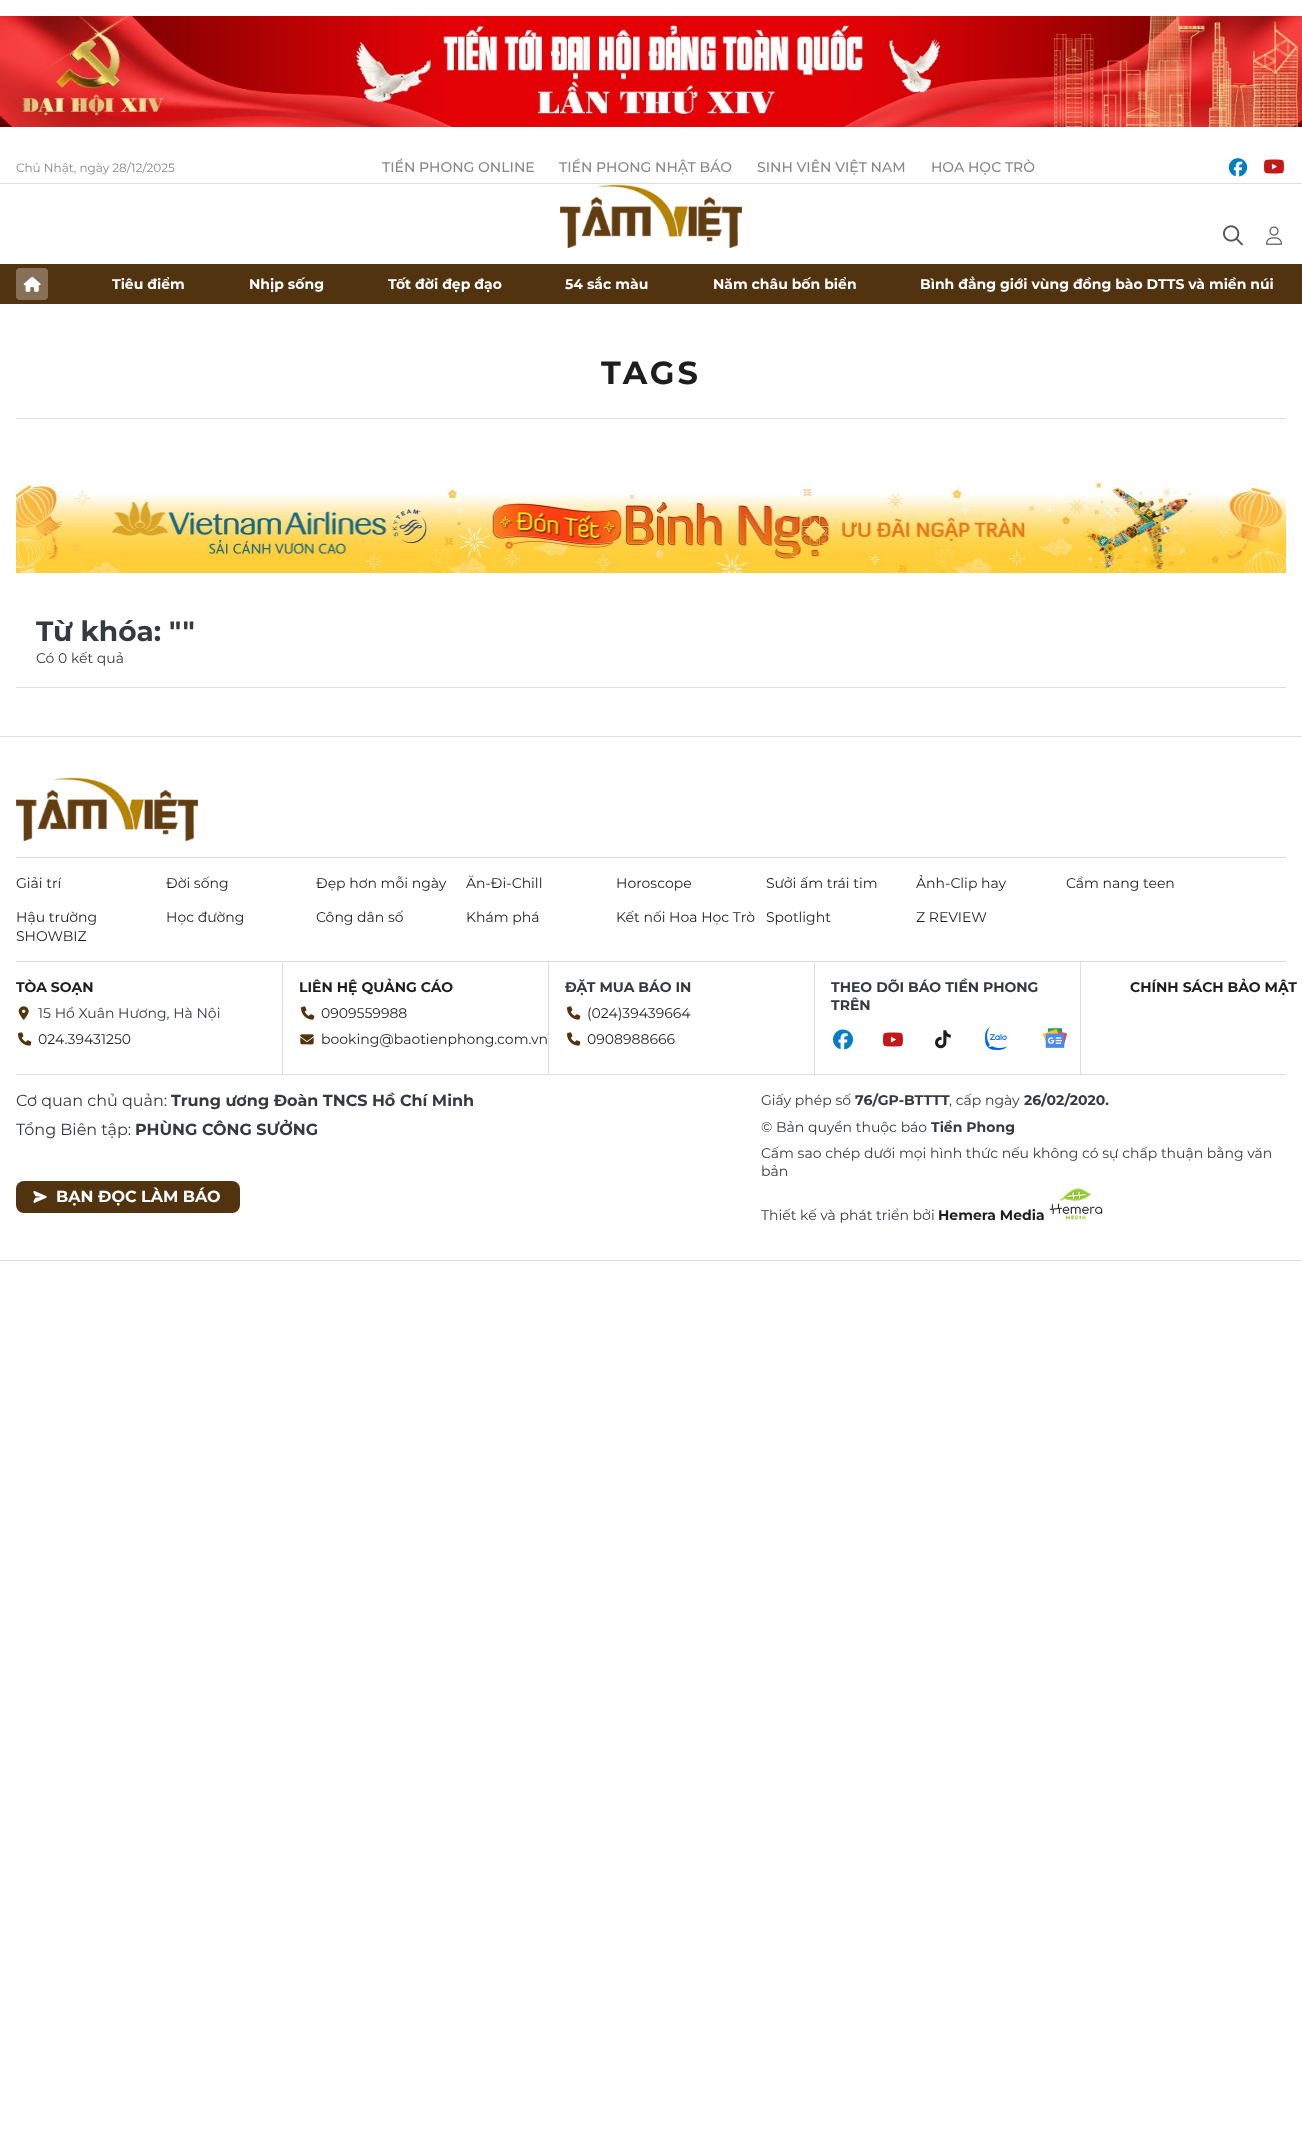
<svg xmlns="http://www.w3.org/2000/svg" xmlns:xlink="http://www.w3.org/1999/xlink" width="1302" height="2132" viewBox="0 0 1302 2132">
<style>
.cls-1{font:12px Montserrat;fill:#888888}
.cls-2{font:500 14px Montserrat;fill:#888888}
.cls-3{font:bold 14px Montserrat;fill:#ffffff}
.cls-4{font:bold 32px Montserrat;letter-spacing:3px;fill:#1e1e1e}
.cls-5{font:bold 28px Montserrat;fill:#343a40}
.cls-6{font:14px Montserrat;fill:#343a40}
.cls-7{font:14px Montserrat;fill:#1e1e1e}
.cls-8{font:bold 14px Montserrat;fill:#1e1e1e}
.cls-9{font:bold 14px Montserrat;fill:#343a40}
.cls-10{font:16px Montserrat;fill:#343a40}
.cls-11{font:bold 16px Montserrat;fill:#343a40}
.cls-12{font:bold 16px Montserrat;fill:#ffffff}
</style>
<rect width="100%" height="100%" fill="#ffffff"/>
<image xlink:href="image0.png" x="0" y="16" width="1302" height="111"/>
<rect fill="#dddddd" x="0" y="183" width="1302" height="1"/>
<image xlink:href="image1.png" x="1228" y="158" width="20" height="19"/>
<image xlink:href="image2.png" x="1264" y="159" width="20" height="15"/>
<image xlink:href="image3.png" x="560" y="184" width="182" height="64"/>
<image xlink:href="image4.png" x="1223" y="225" width="20" height="21"/>
<image xlink:href="image5.png" x="1266" y="226" width="16" height="19"/>
<rect fill="#523310" x="0" y="264" width="1302" height="40"/>
<rect fill="#867058" x="16" y="268" width="32" height="32" rx="4"/>
<image xlink:href="image6.png" x="23" y="276" width="18" height="16"/>
<rect fill="#dddddd" x="16" y="418" width="1270" height="1"/>
<image xlink:href="image7.png" x="16" y="483" width="1270" height="90"/>
<rect fill="#dddddd" x="16" y="687" width="1270" height="1"/>
<rect fill="#dddddd" x="0" y="736" width="1302" height="1"/>
<rect fill="#dddddd" x="0" y="1260" width="1302" height="1"/>
<rect fill="#dddddd" x="16" y="857" width="1270" height="1"/>
<image xlink:href="image3.png" x="16" y="777" width="182" height="64"/>
<rect fill="#dddddd" x="16" y="961" width="1270" height="1"/>
<rect fill="#dddddd" x="16" y="1074" width="1270" height="1"/>
<image xlink:href="image8.png" x="18" y="1006" width="11" height="14"/>
<image xlink:href="image9.png" x="18" y="1032" width="14" height="14"/>
<rect fill="#dddddd" x="282" y="962" width="1" height="112"/>
<image xlink:href="image9.png" x="301" y="1006" width="14" height="14"/>
<image xlink:href="image10.png" x="300" y="1034" width="14" height="11"/>
<rect fill="#dddddd" x="548" y="962" width="1" height="112"/>
<image xlink:href="image9.png" x="567" y="1006" width="14" height="14"/>
<image xlink:href="image9.png" x="567" y="1032" width="14" height="14"/>
<rect fill="#dddddd" x="814" y="962" width="1" height="112"/>
<image xlink:href="image11.png" x="833" y="1029" width="20" height="21"/>
<image xlink:href="image2.png" x="883" y="1032" width="20" height="15"/>
<image xlink:href="image12.png" x="935" y="1030" width="16" height="19"/>
<image xlink:href="image13.png" x="985" y="1027" width="22" height="23"/>
<image xlink:href="image14.png" x="1043" y="1028" width="24" height="20"/>
<rect fill="#dddddd" x="1080" y="962" width="1" height="112"/>
<rect fill="#523310" x="16" y="1181" width="224" height="32" rx="8"/>
<image xlink:href="image15.png" x="33" y="1191" width="14" height="12"/>
<image xlink:href="image16.png" x="1049" y="1188" width="54" height="32"/>
<text class="cls-1" x="16" y="172">Chủ Nhật, ngày 28/12/2025</text>
<text class="cls-2" x="382" y="172">TIỀN PHONG ONLINE</text>
<text class="cls-2" x="559" y="172">TIỀN PHONG NHẬT BÁO</text>
<text class="cls-2" x="757" y="172">SINH VIÊN VIỆT NAM</text>
<text class="cls-2" x="931" y="172">HOA HỌC TRÒ</text>
<text class="cls-3" x="112" y="289">Tiêu điểm</text>
<text class="cls-3" x="249" y="289">Nhịp sống</text>
<text class="cls-3" x="388" y="289">Tốt đời đẹp đạo</text>
<text class="cls-3" x="565" y="289">54 sắc màu</text>
<text class="cls-3" x="713" y="289">Năm châu bốn biển</text>
<text class="cls-3" x="920" y="289">Bình đẳng giới vùng đồng bào DTTS và miền núi</text>
<text class="cls-4" x="601" y="384">TAGS</text>
<text class="cls-5" x="36" y="641">Từ khóa: ""</text>
<text class="cls-6" x="36" y="663">Có 0 kết quả</text>
<text class="cls-7" x="16" y="888">Giải trí</text>
<text class="cls-7" x="166" y="888">Đời sống</text>
<text class="cls-7" x="316" y="888">Đẹp hơn mỗi ngày</text>
<text class="cls-7" x="466" y="888">Ăn-Đi-Chill</text>
<text class="cls-7" x="616" y="888">Horoscope</text>
<text class="cls-7" x="766" y="888">Sưởi ấm trái tim</text>
<text class="cls-7" x="916" y="888">Ảnh-Clip hay</text>
<text class="cls-7" x="1066" y="888">Cẩm nang teen</text>
<text class="cls-7"><tspan x="16" y="922">Hậu trường</tspan><tspan x="16" y="941">SHOWBIZ</tspan></text>
<text class="cls-7" x="166" y="922">Học đường</text>
<text class="cls-7" x="316" y="922">Công dân số</text>
<text class="cls-7" x="466" y="922">Khám phá</text>
<text class="cls-7" x="616" y="922">Kết nối Hoa Học Trò</text>
<text class="cls-7" x="766" y="922">Spotlight</text>
<text class="cls-7" x="916" y="922">Z REVIEW</text>
<text class="cls-8" x="16" y="992">TÒA SOẠN</text>
<text class="cls-6" x="38" y="1018">15 Hồ Xuân Hương, Hà Nội</text>
<text class="cls-7" x="38" y="1044">024.39431250</text>
<text class="cls-8" x="299" y="992">LIÊN HỆ QUẢNG CÁO</text>
<text class="cls-7"><tspan x="321" y="1018">0909559988</tspan><tspan x="321" y="1044">booking@baotienphong.com.vn</tspan></text>
<text class="cls-9" x="565" y="992">ĐẶT MUA BÁO IN</text>
<text class="cls-7"><tspan x="587" y="1018">(024)39439664</tspan><tspan x="587" y="1044">0908988666</tspan></text>
<text class="cls-9"><tspan x="831" y="992">THEO DÕI BÁO TIỀN PHONG</tspan><tspan x="831" y="1010">TRÊN</tspan></text>
<text class="cls-8" x="1130" y="992">CHÍNH SÁCH BẢO MẬT</text>
<text class="cls-10" x="16" y="1106">Cơ quan chủ quản:</text>
<text class="cls-11" x="171" y="1106">Trung ương Đoàn TNCS Hồ Chí Minh</text>
<text class="cls-10" x="16" y="1135">Tổng Biên tập:</text>
<text class="cls-11" x="135" y="1135">PHÙNG CÔNG SƯỞNG</text>
<text class="cls-12" x="56" y="1202">BẠN ĐỌC LÀM BÁO</text>
<text class="cls-6" x="761" y="1105">Giấy phép số</text>
<text class="cls-9" x="855" y="1105">76/GP-BTTTT</text>
<text class="cls-6" x="949" y="1105">, cấp ngày</text>
<text class="cls-9" x="1024" y="1105">26/02/2020.</text>
<text class="cls-6" x="761" y="1132">© Bản quyền thuộc báo</text>
<text class="cls-9" x="931" y="1132">Tiền Phong</text>
<text class="cls-6"><tspan x="761" y="1158">Cấm sao chép dưới mọi hình thức nếu không có sự chấp thuận bằng văn</tspan><tspan x="761" y="1176">bản</tspan></text>
<text class="cls-6" x="761" y="1220">Thiết kế và phát triển bởi</text>
<text class="cls-8" x="938" y="1220">Hemera Media</text>
</svg>
